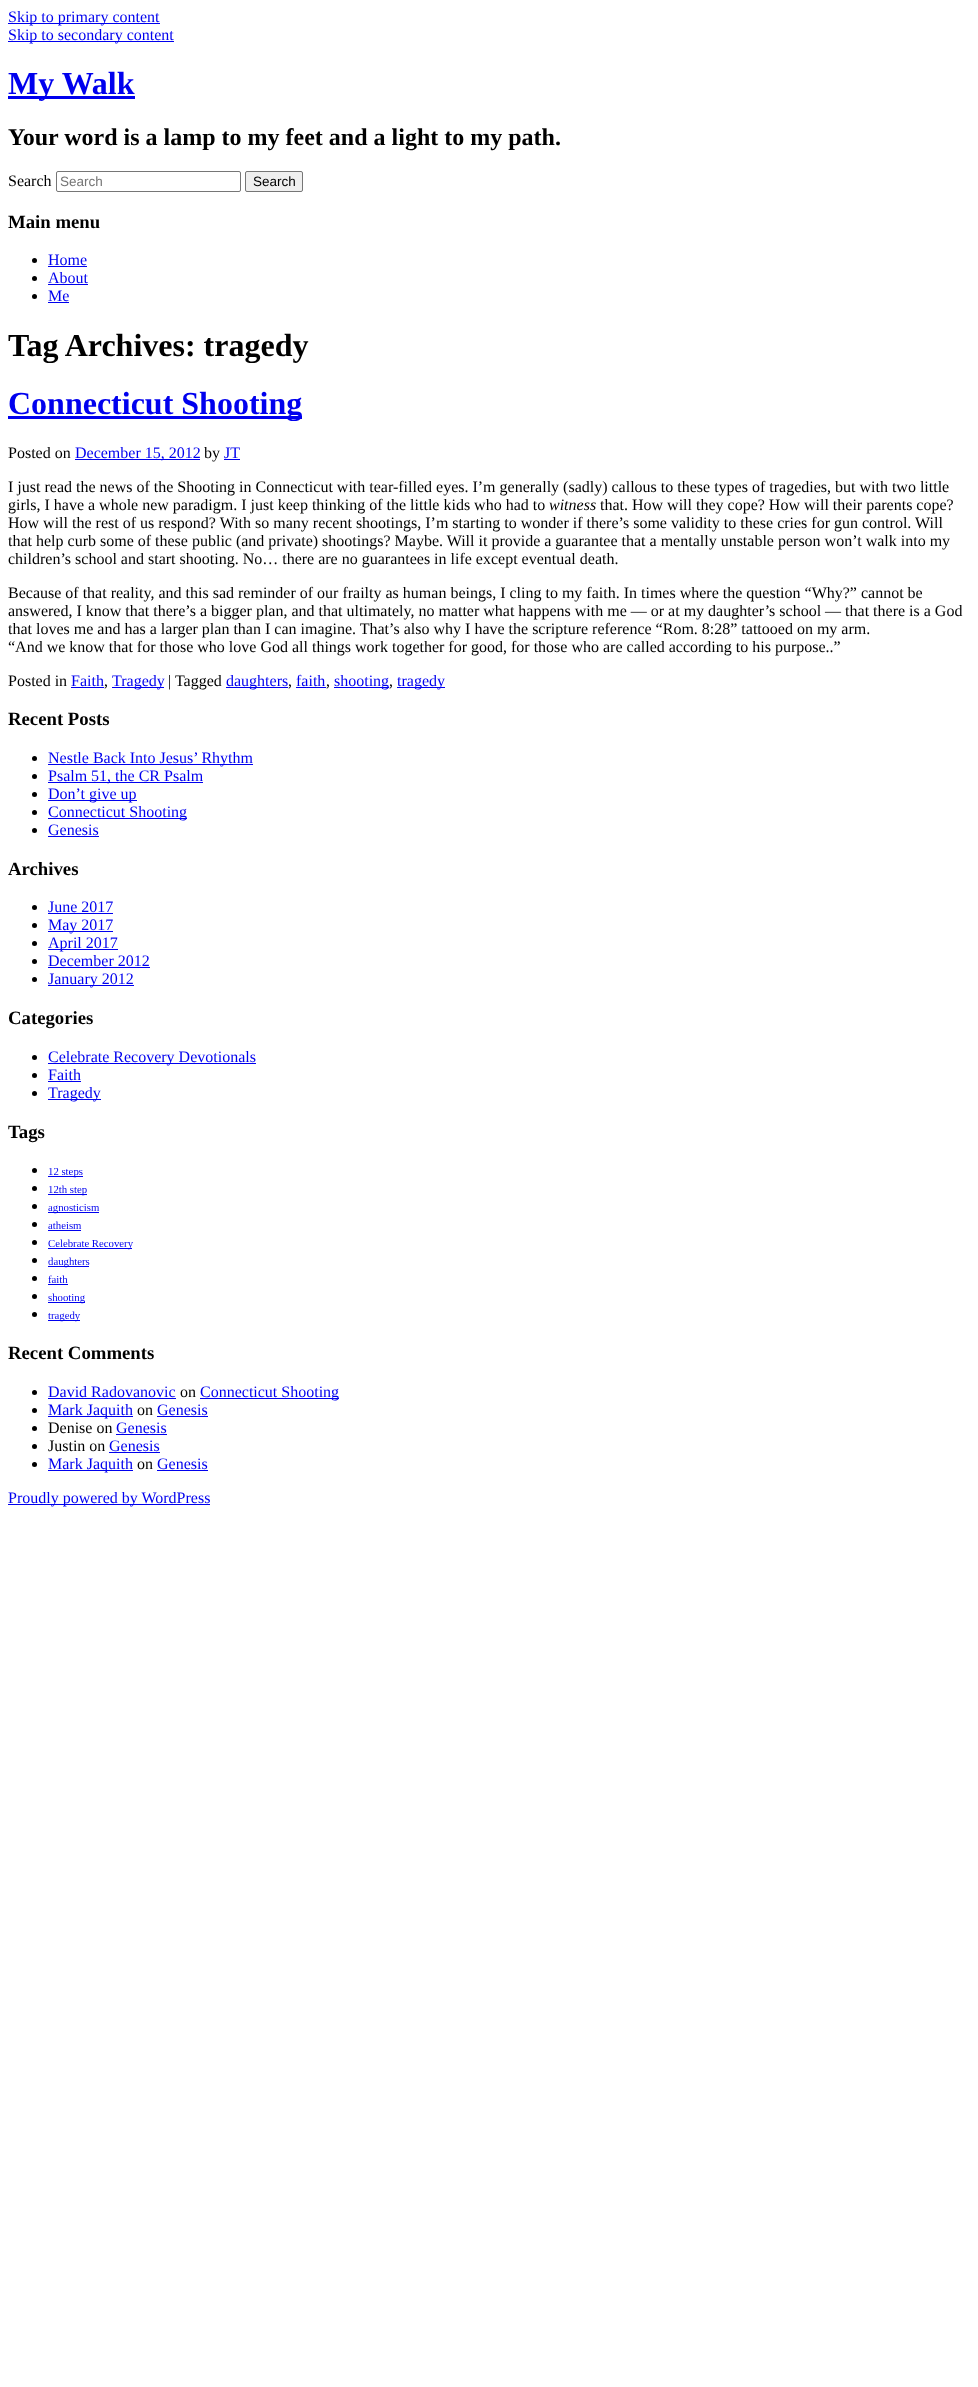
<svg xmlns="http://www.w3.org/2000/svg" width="978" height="2387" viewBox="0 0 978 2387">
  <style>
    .t1 { font: 16px Liberation Serif; fill: #00e; }
    .t2 { font: bold 32px Liberation Serif; fill: #00e; }
    .t3 { font: bold 24px Liberation Serif; fill: #000; }
    .t4 { font: 16px Liberation Serif; fill: #000; }
    .t5 { font: 13.5px Liberation Sans; fill: #757575; }
    .t6 { font: 13.5px Liberation Sans; fill: #000; }
    .t7 { font: bold 18.75px Liberation Serif; fill: #000; }
    .t8 { font: bold 32px Liberation Serif; fill: #000; }
    .t9 { font: italic 16px Liberation Serif; fill: #000; }
    .t10 { font: 10.75px Liberation Serif; fill: #00e; }
  </style>
  <rect width="100%" height="100%" fill="#fff"/>
  <rect x="8" y="23" width="152" height="1" fill="#00e"/>
  <text x="8" y="22" class="t1">Skip to primary content</text>
  <rect x="8" y="41" width="166" height="1" fill="#00e"/>
  <text x="8" y="40" class="t1">Skip to secondary content</text>
  <rect x="8" y="96" width="127" height="3" fill="#00e"/>
  <text x="8" y="94" class="t2">My Walk</text>
  <text x="8" y="145" class="t3">Your word is a lamp to my feet and a light to my path.</text>
  <text x="8" y="186" class="t4">Search</text>
  <rect x="56.5" y="171.5" width="184" height="20" rx="1.5" fill="none" stroke="#767676"/>
  <text x="60" y="186" class="t5">Search</text>
  <rect x="245.5" y="171.5" width="57" height="20" rx="1.5" fill="#efefef" stroke="#767676"/>
  <text x="253" y="186" class="t6">Search</text>
  <text x="8" y="228" class="t7">Main menu</text>
  <circle cx="34.5" cy="260.5" r="2.5" fill="#000"/>
  <text x="48" y="265" class="t1">Home</text>
  <rect x="48" y="266" width="39" height="1" fill="#00e"/>
  <circle cx="34.5" cy="278.5" r="2.5" fill="#000"/>
  <text x="48" y="283" class="t1">About</text>
  <rect x="48" y="284" width="40" height="1" fill="#00e"/>
  <circle cx="34.5" cy="296.5" r="2.5" fill="#000"/>
  <text x="48" y="301" class="t1">Me</text>
  <rect x="48" y="302" width="21" height="1" fill="#00e"/>
  <text x="8" y="356" class="t8">Tag Archives: tragedy</text>
  <rect x="8" y="416" width="294" height="3" fill="#00e"/>
  <text x="8" y="414" class="t2">Connecticut Shooting</text>
  <text x="8" y="458" class="t4">Posted on</text>
  <rect x="75" y="459" width="125" height="1" fill="#00e"/>
  <text x="75" y="458" class="t1">December 15, 2012</text>
  <text x="204" y="458" class="t4">by</text>
  <text x="224" y="458" class="t1">JT</text>
  <rect x="224" y="459" width="16" height="1" fill="#00e"/>
  <text x="8" y="492" class="t4">I just read the news of the Shooting in Connecticut with tear-filled eyes. I’m generally (sadly) callous to these types of tragedies, but with two little</text>
  <text x="8" y="510" class="t4">girls, I have a whole new paradigm. I just keep thinking of the little kids who had to</text>
  <text x="549" y="510" class="t9">witness</text>
  <text x="600" y="510" class="t4">that. How will they cope? How will their parents cope?</text>
  <text x="8" y="528" class="t4">How will the rest of us respond? With so many recent shootings, I’m starting to wonder if there’s some validity to these cries for gun control. Will</text>
  <text x="8" y="546" class="t4">that help curb some of these public (and private) shootings? Maybe. Will it provide a guarantee that a mentally unstable person won’t walk into my</text>
  <text x="8" y="564" class="t4">children’s school and start shooting. No… there are no guarantees in life except eventual death.</text>
  <text x="8" y="598" class="t4">Because of that reality, and this sad reminder of our frailty as human beings, I cling to my faith. In times where the question “Why?” cannot be</text>
  <text x="8" y="616" class="t4">answered, I know that there’s a bigger plan, and that ultimately, no matter what happens with me — or at my daughter’s school — that there is a God</text>
  <text x="8" y="634" class="t4">that loves me and has a larger plan than I can imagine. That’s also why I have the scripture reference “Rom. 8:28” tattooed on my arm.</text>
  <text x="8" y="652" class="t4">“And we know that for those who love God all things work together for good, for those who are called according to his purpose..”</text>
  <text x="8" y="686" class="t4">Posted in</text>
  <text x="71" y="686" class="t1">Faith</text>
  <text x="104" y="686" class="t4">,</text>
  <rect x="71" y="687" width="33" height="1" fill="#00e"/>
  <rect x="112" y="687" width="52" height="1" fill="#00e"/>
  <text x="112" y="686" class="t1">Tragedy</text>
  <text x="168" y="686" class="t4">| Tagged</text>
  <rect x="226" y="687" width="62" height="1" fill="#00e"/>
  <text x="226" y="686" class="t1">daughters</text>
  <text x="288" y="686" class="t4">,</text>
  <text x="296" y="686" class="t1">faith</text>
  <text x="326" y="686" class="t4">,</text>
  <rect x="296" y="687" width="30" height="1" fill="#00e"/>
  <rect x="334" y="687" width="55" height="1" fill="#00e"/>
  <text x="334" y="686" class="t1">shooting</text>
  <text x="389" y="686" class="t4">,</text>
  <rect x="397" y="687" width="48" height="1" fill="#00e"/>
  <text x="397" y="686" class="t1">tragedy</text>
  <text x="8" y="725" class="t7">Recent Posts</text>
  <circle cx="34.5" cy="758.5" r="2.5" fill="#000"/>
  <rect x="48" y="764" width="205" height="1" fill="#00e"/>
  <text x="48" y="763" class="t1">Nestle Back Into Jesus’ Rhythm</text>
  <circle cx="34.5" cy="776.5" r="2.5" fill="#000"/>
  <rect x="48" y="782" width="155" height="1" fill="#00e"/>
  <text x="48" y="781" class="t1">Psalm 51, the CR Psalm</text>
  <circle cx="34.5" cy="794.5" r="2.5" fill="#000"/>
  <rect x="48" y="800" width="89" height="1" fill="#00e"/>
  <text x="48" y="799" class="t1">Don’t give up</text>
  <circle cx="34.5" cy="812.5" r="2.5" fill="#000"/>
  <rect x="48" y="818" width="139" height="1" fill="#00e"/>
  <text x="48" y="817" class="t1">Connecticut Shooting</text>
  <circle cx="34.5" cy="830.5" r="2.5" fill="#000"/>
  <text x="48" y="835" class="t1">Genesis</text>
  <rect x="48" y="836" width="51" height="1" fill="#00e"/>
  <text x="8" y="875" class="t7">Archives</text>
  <circle cx="34.5" cy="907.5" r="2.5" fill="#000"/>
  <text x="48" y="912" class="t1">June 2017</text>
  <rect x="48" y="913" width="65" height="1" fill="#00e"/>
  <circle cx="34.5" cy="925.5" r="2.5" fill="#000"/>
  <rect x="48" y="931" width="65" height="1" fill="#00e"/>
  <text x="48" y="930" class="t1">May 2017</text>
  <circle cx="34.5" cy="943.5" r="2.5" fill="#000"/>
  <rect x="48" y="949" width="70" height="1" fill="#00e"/>
  <text x="48" y="948" class="t1">April 2017</text>
  <circle cx="34.5" cy="961.5" r="2.5" fill="#000"/>
  <text x="48" y="966" class="t1">December 2012</text>
  <rect x="48" y="967" width="102" height="1" fill="#00e"/>
  <circle cx="34.5" cy="979.5" r="2.5" fill="#000"/>
  <rect x="48" y="985" width="86" height="1" fill="#00e"/>
  <text x="48" y="984" class="t1">January 2012</text>
  <text x="8" y="1024" class="t7">Categories</text>
  <circle cx="34.5" cy="1057.5" r="2.5" fill="#000"/>
  <rect x="48" y="1063" width="208" height="1" fill="#00e"/>
  <text x="48" y="1062" class="t1">Celebrate Recovery Devotionals</text>
  <circle cx="34.5" cy="1075.5" r="2.5" fill="#000"/>
  <text x="48" y="1080" class="t1">Faith</text>
  <rect x="48" y="1081" width="33" height="1" fill="#00e"/>
  <circle cx="34.5" cy="1093.5" r="2.5" fill="#000"/>
  <rect x="48" y="1099" width="53" height="1" fill="#00e"/>
  <text x="48" y="1098" class="t1">Tragedy</text>
  <text x="8" y="1138" class="t7">Tags</text>
  <circle cx="34.5" cy="1170.5" r="2.5" fill="#000"/>
  <rect x="48" y="1176" width="35" height="1" fill="#00e"/>
  <text x="48" y="1175" class="t10">12 steps</text>
  <circle cx="34.5" cy="1188.5" r="2.5" fill="#000"/>
  <rect x="48" y="1194" width="39" height="1" fill="#00e"/>
  <text x="48" y="1193" class="t10">12th step</text>
  <circle cx="34.5" cy="1206.5" r="2.5" fill="#000"/>
  <rect x="48" y="1212" width="51" height="1" fill="#00e"/>
  <text x="48" y="1211" class="t10">agnosticism</text>
  <circle cx="34.5" cy="1224.5" r="2.5" fill="#000"/>
  <text x="48" y="1229" class="t10">atheism</text>
  <rect x="48" y="1230" width="33" height="1" fill="#00e"/>
  <circle cx="34.5" cy="1242.5" r="2.5" fill="#000"/>
  <rect x="48" y="1248" width="84" height="1" fill="#00e"/>
  <text x="48" y="1247" class="t10">Celebrate Recovery</text>
  <circle cx="34.5" cy="1260.5" r="2.5" fill="#000"/>
  <rect x="48" y="1266" width="41" height="1" fill="#00e"/>
  <text x="48" y="1265" class="t10">daughters</text>
  <circle cx="34.5" cy="1278.5" r="2.5" fill="#000"/>
  <text x="48" y="1283" class="t10">faith</text>
  <rect x="48" y="1284" width="20" height="1" fill="#00e"/>
  <circle cx="34.5" cy="1296.5" r="2.5" fill="#000"/>
  <rect x="48" y="1302" width="37" height="1" fill="#00e"/>
  <text x="48" y="1301" class="t10">shooting</text>
  <circle cx="34.5" cy="1314.5" r="2.5" fill="#000"/>
  <rect x="48" y="1320" width="32" height="1" fill="#00e"/>
  <text x="48" y="1319" class="t10">tragedy</text>
  <text x="8" y="1359" class="t7">Recent Comments</text>
  <circle cx="34.5" cy="1392.5" r="2.5" fill="#000"/>
  <text x="48" y="1397" class="t1">David Radovanovic</text>
  <rect x="48" y="1398" width="128" height="1" fill="#00e"/>
  <text x="180" y="1397" class="t4">on</text>
  <rect x="200" y="1398" width="139" height="1" fill="#00e"/>
  <text x="200" y="1397" class="t1">Connecticut Shooting</text>
  <circle cx="34.5" cy="1410.5" r="2.5" fill="#000"/>
  <rect x="48" y="1416" width="85" height="1" fill="#00e"/>
  <text x="48" y="1415" class="t1">Mark Jaquith</text>
  <text x="137" y="1415" class="t4">on</text>
  <text x="157" y="1415" class="t1">Genesis</text>
  <rect x="157" y="1416" width="51" height="1" fill="#00e"/>
  <circle cx="34.5" cy="1428.5" r="2.5" fill="#000"/>
  <text x="48" y="1433" class="t4">Denise on</text>
  <text x="116" y="1433" class="t1">Genesis</text>
  <rect x="116" y="1434" width="51" height="1" fill="#00e"/>
  <circle cx="34.5" cy="1446.5" r="2.5" fill="#000"/>
  <text x="48" y="1451" class="t4">Justin on</text>
  <text x="109" y="1451" class="t1">Genesis</text>
  <rect x="109" y="1452" width="51" height="1" fill="#00e"/>
  <circle cx="34.5" cy="1464.5" r="2.5" fill="#000"/>
  <rect x="48" y="1470" width="85" height="1" fill="#00e"/>
  <text x="48" y="1469" class="t1">Mark Jaquith</text>
  <text x="137" y="1469" class="t4">on</text>
  <text x="157" y="1469" class="t1">Genesis</text>
  <rect x="157" y="1470" width="51" height="1" fill="#00e"/>
  <rect x="8" y="1504" width="202" height="1" fill="#00e"/>
  <text x="8" y="1503" class="t1">Proudly powered by WordPress</text>
</svg>
